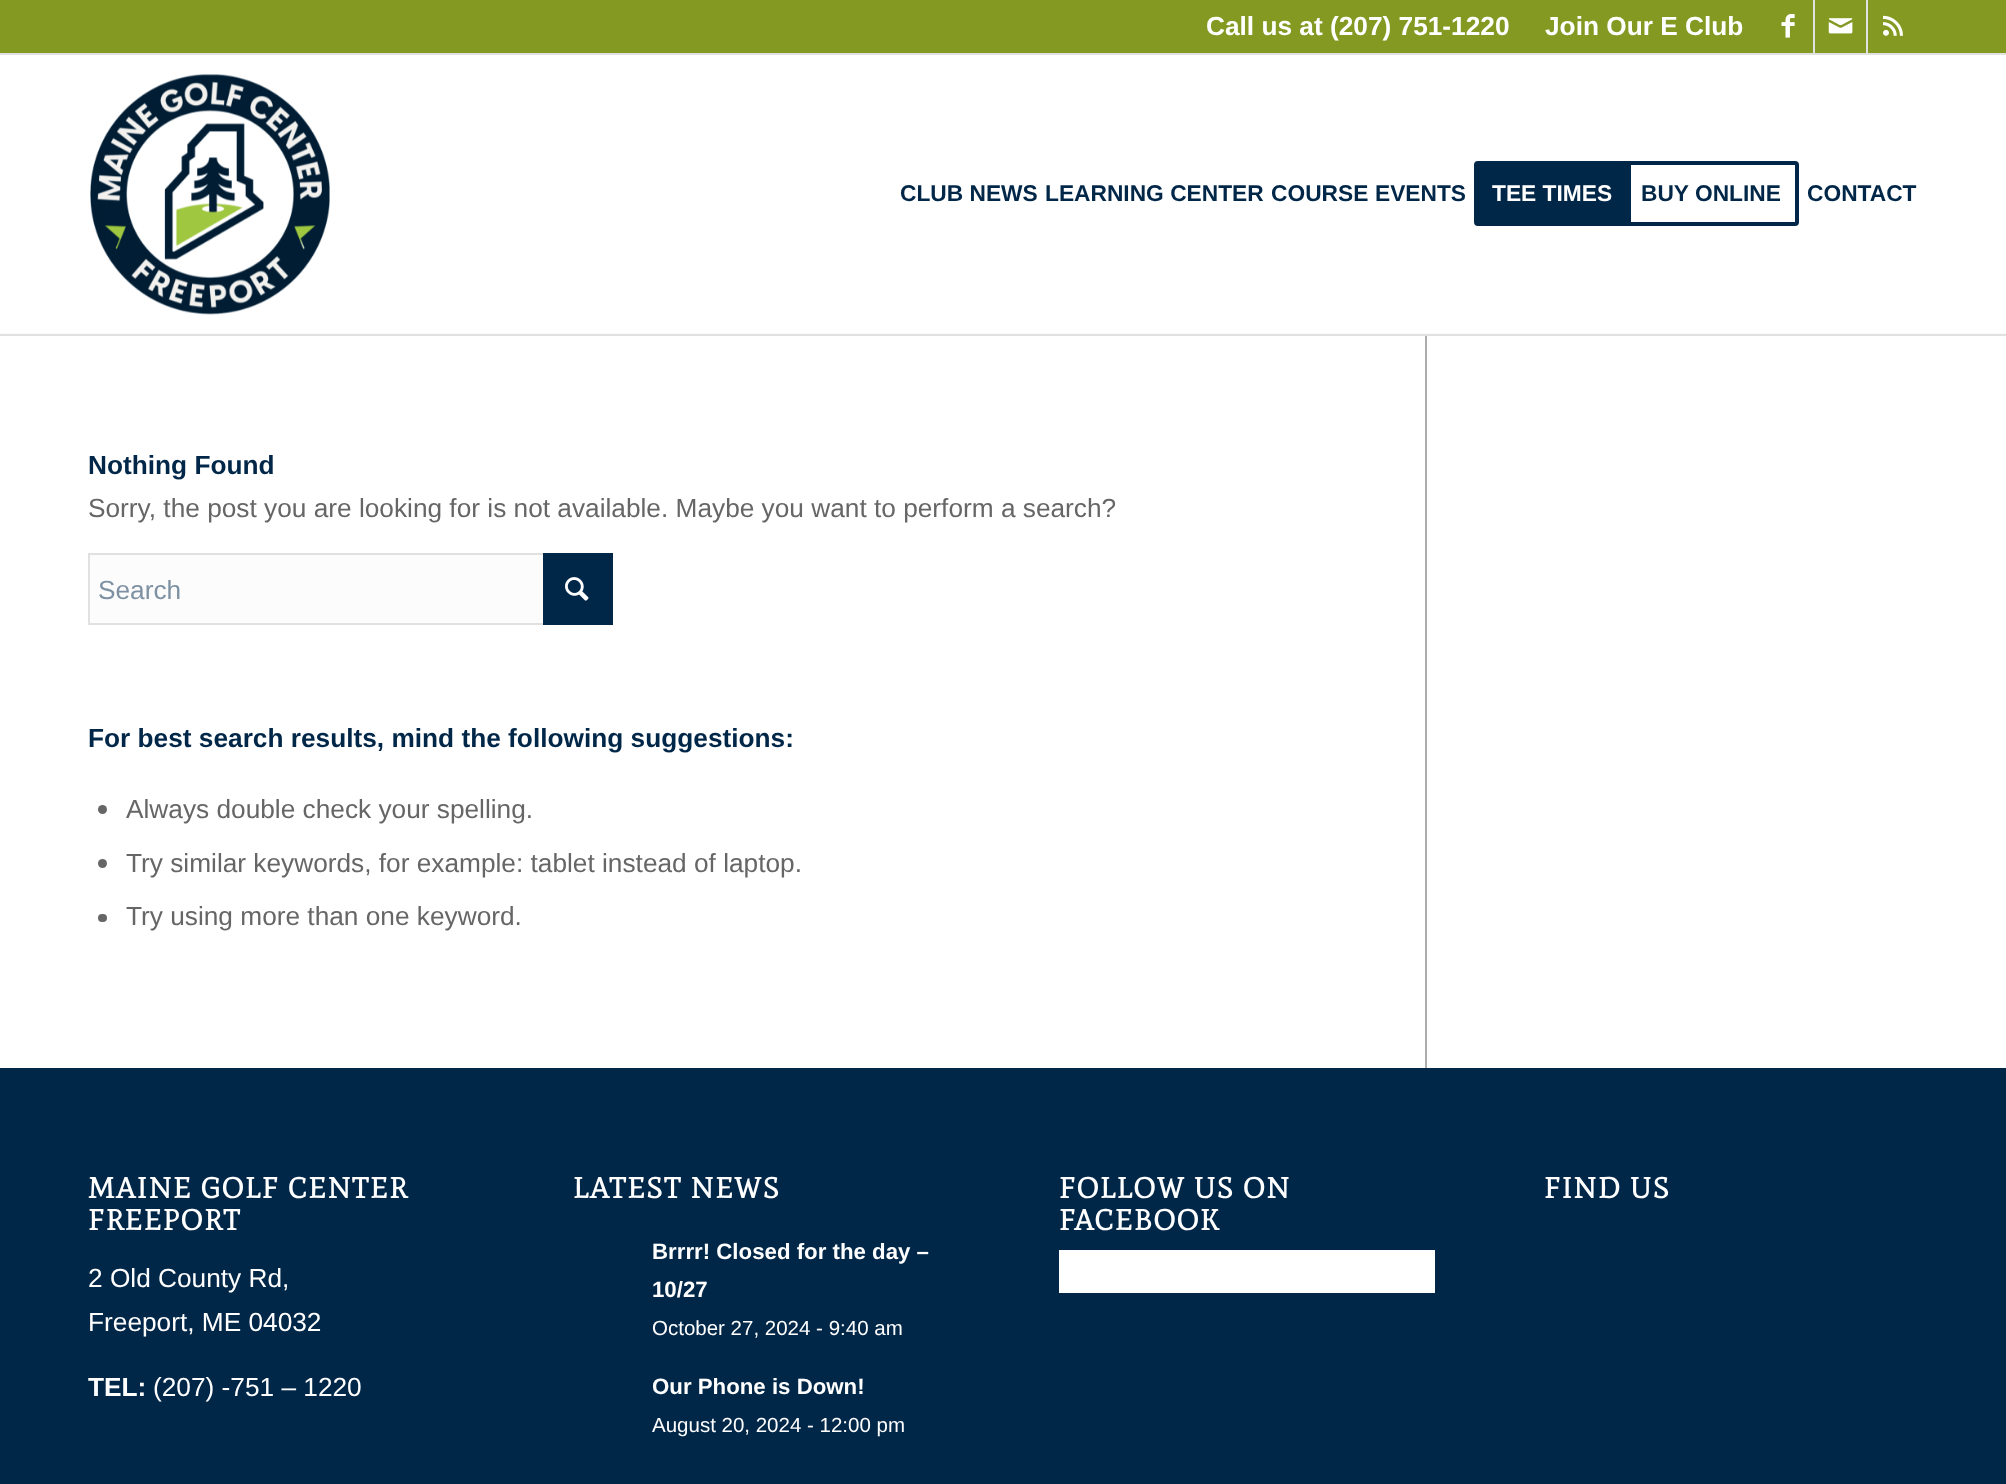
<svg xmlns="http://www.w3.org/2000/svg" width="2006" height="1484" viewBox="0 0 2006 1484">
  <style>
    .t1 { font: bold 26.25px Liberation Sans; fill: #fff; }
    .t2 { font: bold 22.75px Liberation Sans; fill: #002648; }
    .t3 { font: bold 22.75px Liberation Sans; fill: #fff; }
    .t4 { font: bold 26.25px Liberation Sans; fill: #002648; }
    .t5 { font: 26.25px Liberation Sans; fill: #666; }
    .t6 { font: 26.25px Liberation Sans; fill: #7e91a2; }
    .t7 { font: bold 28.9px Mate SC; letter-spacing: 1.75px; fill: #fff; }
    .t8 { font: 26.25px Liberation Sans; fill: #fff; }
    .t9 { font: bold 22.25px Liberation Sans; fill: #fff; }
    .t10 { font: 20.5px Liberation Sans; fill: #fff; }
  </style>
  <defs>
    <clipPath id="clip1"><rect x="88" y="1148" width="376" height="284"/></clipPath>
  </defs>
  <rect width="100%" height="100%" fill="#fff"/>
  <rect x="0" y="0" width="2006" height="53" fill="#839922"/>
  <rect x="0" y="53" width="2006" height="2" fill="#e1e1e1"/>
  <text x="1206" y="35" class="t1">Call us at (207) 751-1220</text>
  <text x="1545" y="35" class="t1">Join Our E Club</text>
  <rect x="1813" y="0" width="2" height="53" fill="#e1e1e1"/>
  <image x="1781" y="14" width="14" height="24" href="images/1.png"/>
  <rect x="1866" y="0" width="2" height="53" fill="#e1e1e1"/>
  <image x="1828" y="18" width="25" height="16" href="images/2.png"/>
  <image x="1883" y="15" width="20" height="21" href="images/3.png"/>
  <rect x="1425" y="334" width="2" height="734" fill="#adadad"/>
  <rect x="0" y="334" width="2006" height="2" fill="#e1e1e1"/>
  <image x="90" y="74" width="240" height="241" href="images/4.png"/>
  <text x="900" y="201" class="t2">CLUB NEWS</text>
  <text x="1045" y="201" class="t2">LEARNING CENTER</text>
  <text x="1271" y="201" class="t2">COURSE</text>
  <text x="1375" y="201" class="t2">EVENTS</text>
  <rect x="1476" y="163" width="153" height="61" rx="2" fill="#002648" stroke="#002648" stroke-width="4"/>
  <text x="1492" y="201" class="t3">TEE TIMES</text>
  <rect x="1623" y="163" width="174" height="61" rx="2" fill="none" stroke="#002648" stroke-width="4"/>
  <text x="1641" y="201" class="t2">BUY ONLINE</text>
  <text x="1807" y="201" class="t2">CONTACT</text>
  <rect x="0" y="333" width="2006" height="1" fill="#fbfbfb"/>
  <text x="88" y="474" class="t4">Nothing Found</text>
  <text x="88" y="517" class="t5">Sorry, the post you are looking for is not available. Maybe you want to perform a search?</text>
  <rect x="90" y="555" width="453" height="68" fill="#fcfcfc"/>
  <rect x="89" y="554" width="523" height="70" fill="none" stroke="#e1e1e1" stroke-width="2"/>
  <rect x="543" y="553" width="70" height="72" fill="#002648"/>
  <text x="98" y="599" class="t6">Search</text>
  <image x="565" y="577" width="24" height="24" href="images/5.png"/>
  <text x="88" y="747" class="t4">For best search results, mind the following suggestions:</text>
  <circle cx="102.5" cy="809.5" r="4.5" fill="#666"/>
  <text x="126" y="818" class="t5">Always double check your spelling.</text>
  <circle cx="102.5" cy="863.5" r="4.5" fill="#666"/>
  <text x="126" y="872" class="t5">Try similar keywords, for example: tablet instead of laptop.</text>
  <rect x="98" y="914" width="9" height="8" rx="4" fill="#666"/>
  <text x="126" y="925" class="t5">Try using more than one keyword.</text>
  <rect x="0" y="1068" width="2006" height="416" fill="#002648"/>
  <text x="88" y="1198" class="t7">MAINE GOLF CENTER</text>
  <text x="88" y="1230" class="t7">FREEPORT</text>
  <text x="88" y="1287" class="t8">2 Old County Rd,</text>
  <text x="88" y="1331" class="t8">Freeport, ME 04032</text>
  <g clip-path="url(#clip1)">
    <text x="88" y="1396" class="t1">TEL:</text>
  </g>
  <text x="153" y="1396" class="t8">(207) -751 – 1220</text>
  <text x="573" y="1198" class="t7">LATEST NEWS</text>
  <text x="652" y="1259" class="t9">Brrrr! Closed for the day –</text>
  <text x="652" y="1297" class="t9">10/27</text>
  <text x="652" y="1335" class="t10">October 27, 2024 - 9:40 am</text>
  <text x="652" y="1394" class="t9">Our Phone is Down!</text>
  <text x="652" y="1432" class="t10">August 20, 2024 - 12:00 pm</text>
  <text x="1059" y="1198" class="t7">FOLLOW US ON</text>
  <text x="1059" y="1230" class="t7">FACEBOOK</text>
  <rect x="1059" y="1250" width="376" height="43" fill="#fff"/>
  <text x="1544" y="1198" class="t7">FIND US</text>
</svg>
